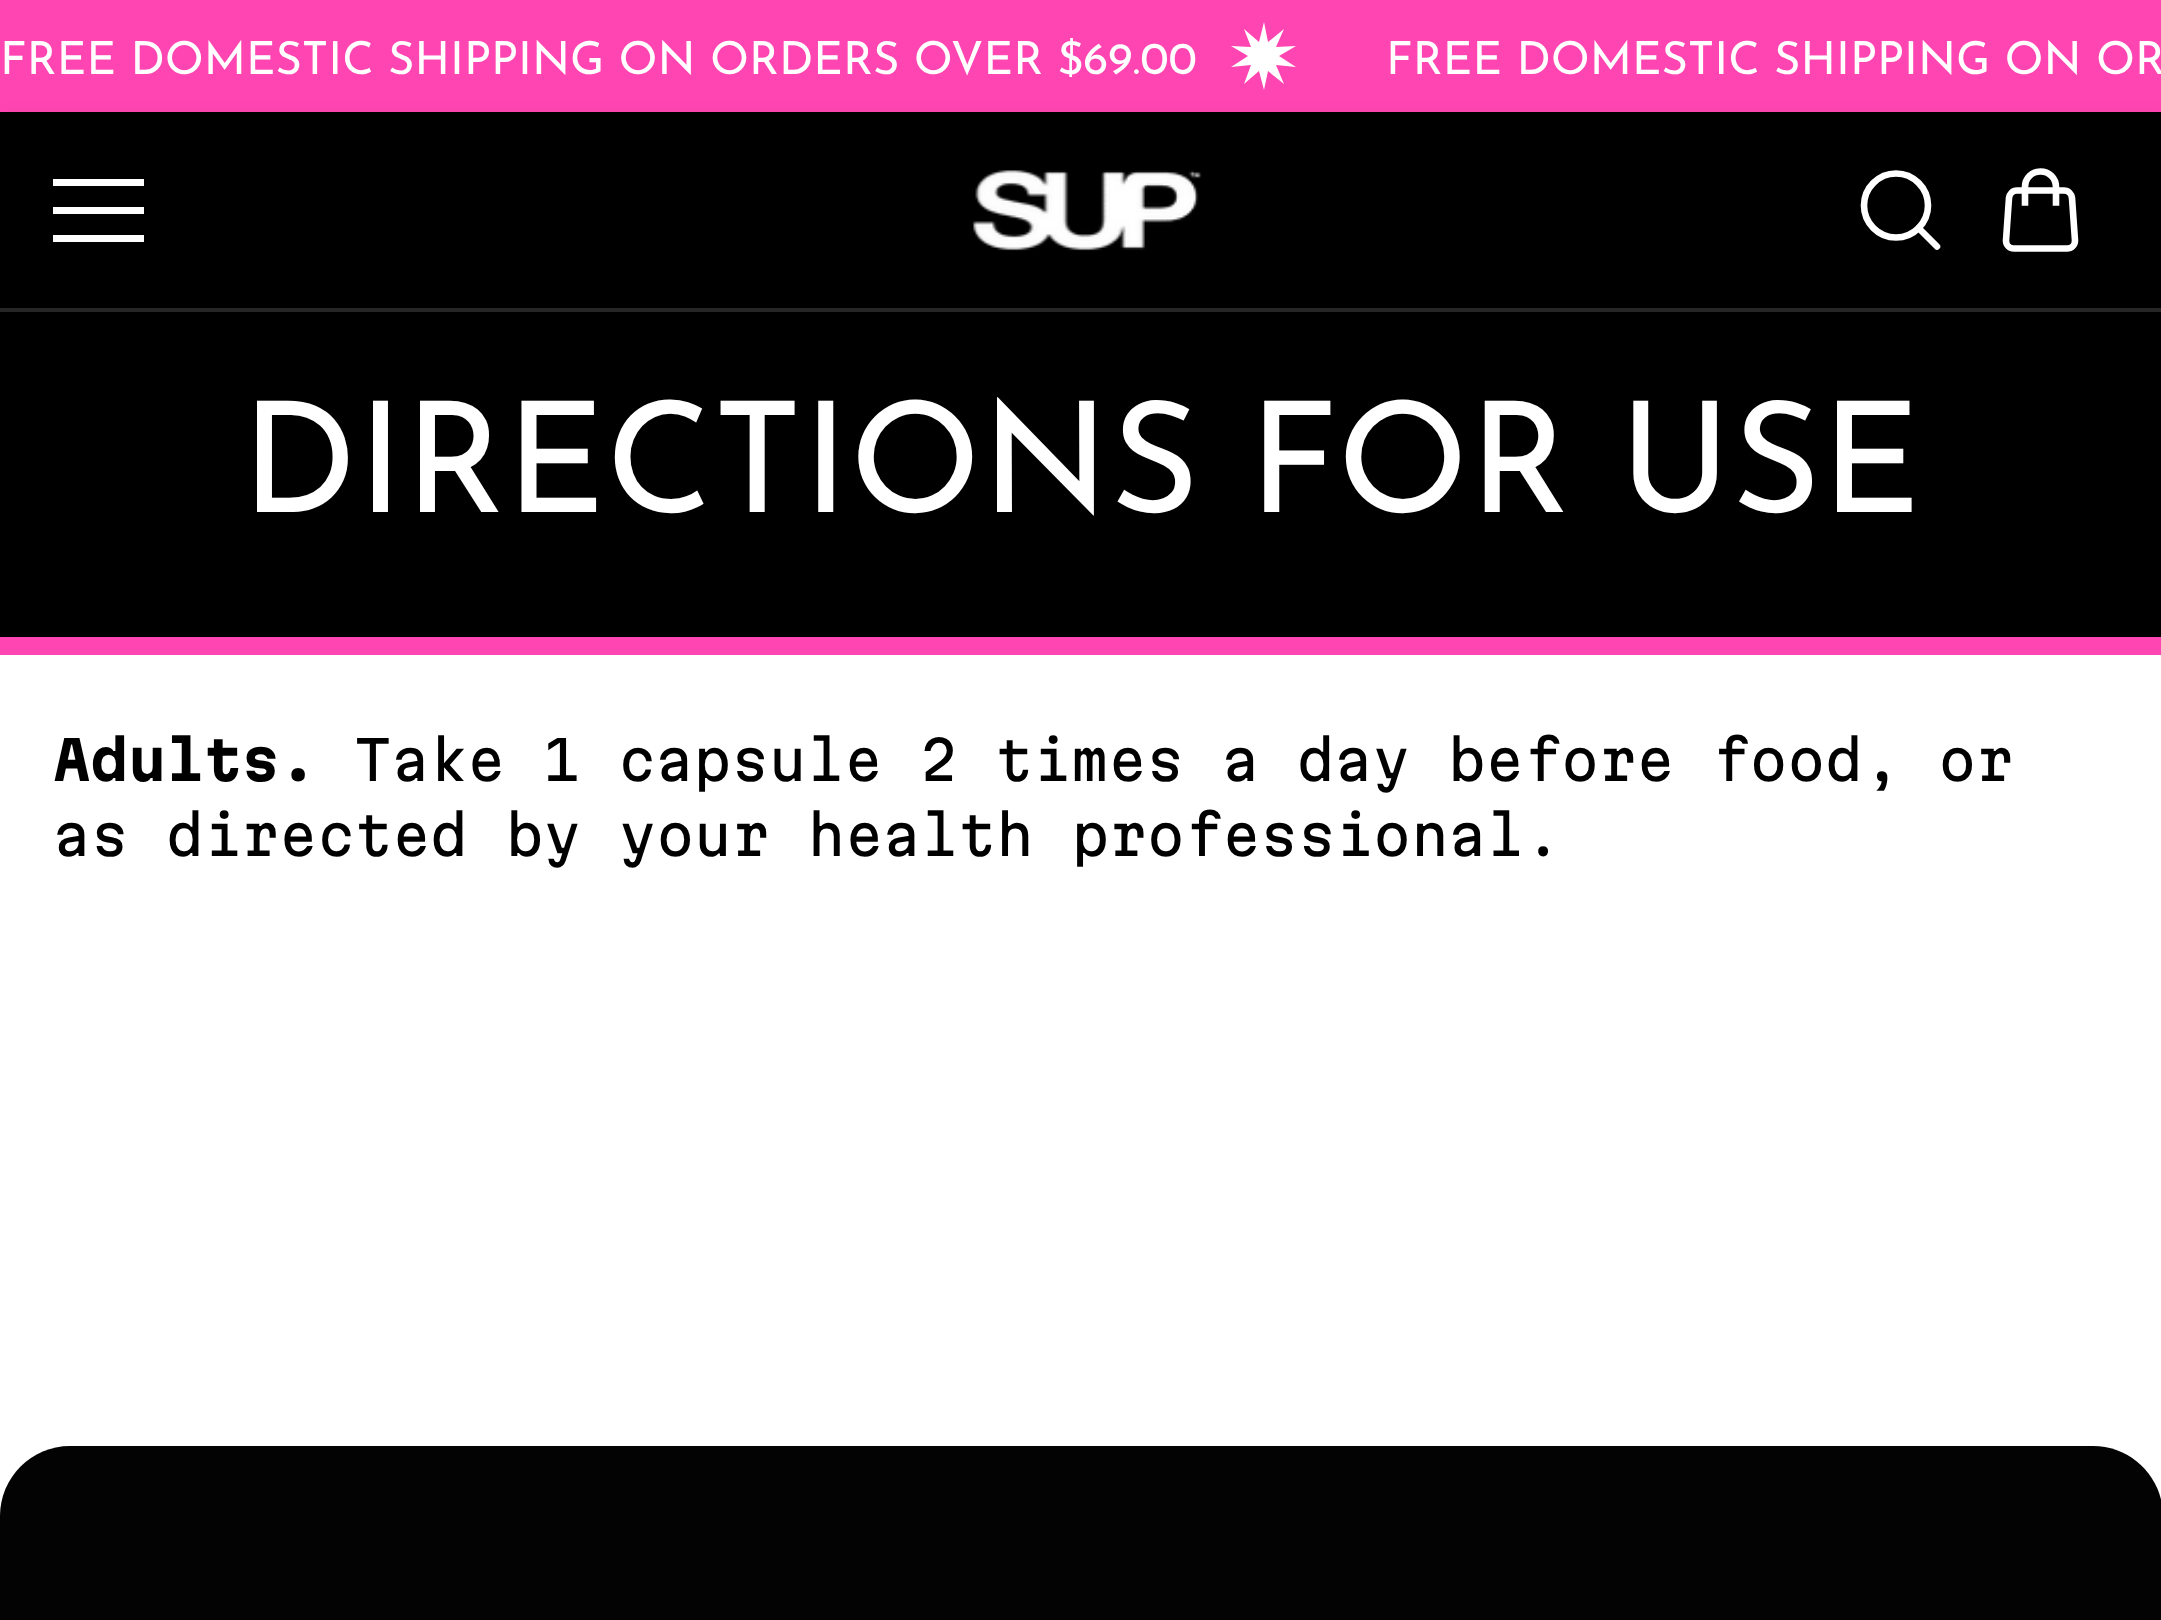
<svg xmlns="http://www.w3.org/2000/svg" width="2161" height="1620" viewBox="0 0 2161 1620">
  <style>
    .t1 { font: 45.5px Josefin Sans; fill: #fff; }
    .t2 { font: 154px Josefin Sans; fill: #fff; }
    .t3 { font: bold 53.9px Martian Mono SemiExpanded; fill: #000; }
    .t4 { font: 53.9px Martian Mono SemiExpanded; fill: #000; }
  </style>
  <rect width="100%" height="100%" fill="#fff"/>
  <rect x="0" y="0" width="2161" height="112" fill="#fe45b1"/>
  <text x="0" y="74" class="t1">FREE DOMESTIC SHIPPING ON ORDERS OVER $69.00</text>
  <path d="M1264 22L1268 42L1284 29L1276 47L1296 46L1279 56L1296 67L1276 65L1284 84L1268 71L1264 90L1259 71L1244 84L1251 65L1231 67L1248 56L1231 46L1251 47L1244 29L1259 42Z" fill="#fff"/>
  <text x="1386" y="74" class="t1">FREE DOMESTIC SHIPPING ON OR</text>
  <rect x="0" y="312" width="2161" height="325" fill="#000"/>
  <rect x="0" y="123" width="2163" height="199" fill="#0000000d" filter="blur(14px)"/>
  <rect x="0" y="112" width="2161" height="196" fill="#000"/>
  <rect x="0" y="308" width="2161" height="4" fill="#262626"/>
  <rect x="53" y="179" width="91" height="7" fill="#fff"/>
  <rect x="53" y="207" width="91" height="7" fill="#fff"/>
  <rect x="53" y="235" width="91" height="7" fill="#fff"/>
  <image x="972" y="170" width="230" height="81" href="images/1.png"/>
  <path d="M1896 237.5C1913.5 237.5 1928 223 1928 205.5C1928 188 1913.5 173.5 1896 173.5C1878.5 173.5 1864 188 1864 205.5C1864 223 1878.5 237.5 1896 237.5Z" fill="none" stroke="#fff" stroke-width="6.6" stroke-linecap="round" stroke-linejoin="round"/>
  <path d="M1918.5 228L1937 246.5" fill="none" stroke="#fff" stroke-width="6.6" stroke-linecap="round" stroke-linejoin="round"/>
  <path d="M2064 190.5H2017C2012.5 190.5 2009.5 194 2009 198L2006 240.5C2006 245 2009.5 248.5 2014 248.5H2067C2071.5 248.5 2075 245 2075 240.5L2072 198C2071.5 194 2068.5 190.5 2064 190.5Z" fill="none" stroke="#fff" stroke-width="6.6"/>
  <path d="M2056 202.5V187C2056 178 2049 171.5 2040.5 171.5C2032 171.5 2025 178 2025 187V202.5" fill="none" stroke="#fff" stroke-width="6.6" stroke-linecap="square"/>
  <text x="241" y="512" class="t2">DIRECTIONS FOR USE</text>
  <rect x="0" y="637" width="2161" height="18" fill="#ff45b1"/>
  <text x="53" y="781" class="t3">Adults.</text>
  <text x="354" y="781" class="t4">Take 1 capsule 2 times a day before food, or</text>
  <text x="53" y="856" class="t4">as directed by your health professional.</text>
  <path d="M70 1446H2093C2131.5 1446 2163 1477.5 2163 1516V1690H0V1516C0 1477.5 31.5 1446 70 1446Z" fill="#030303"/>
</svg>
